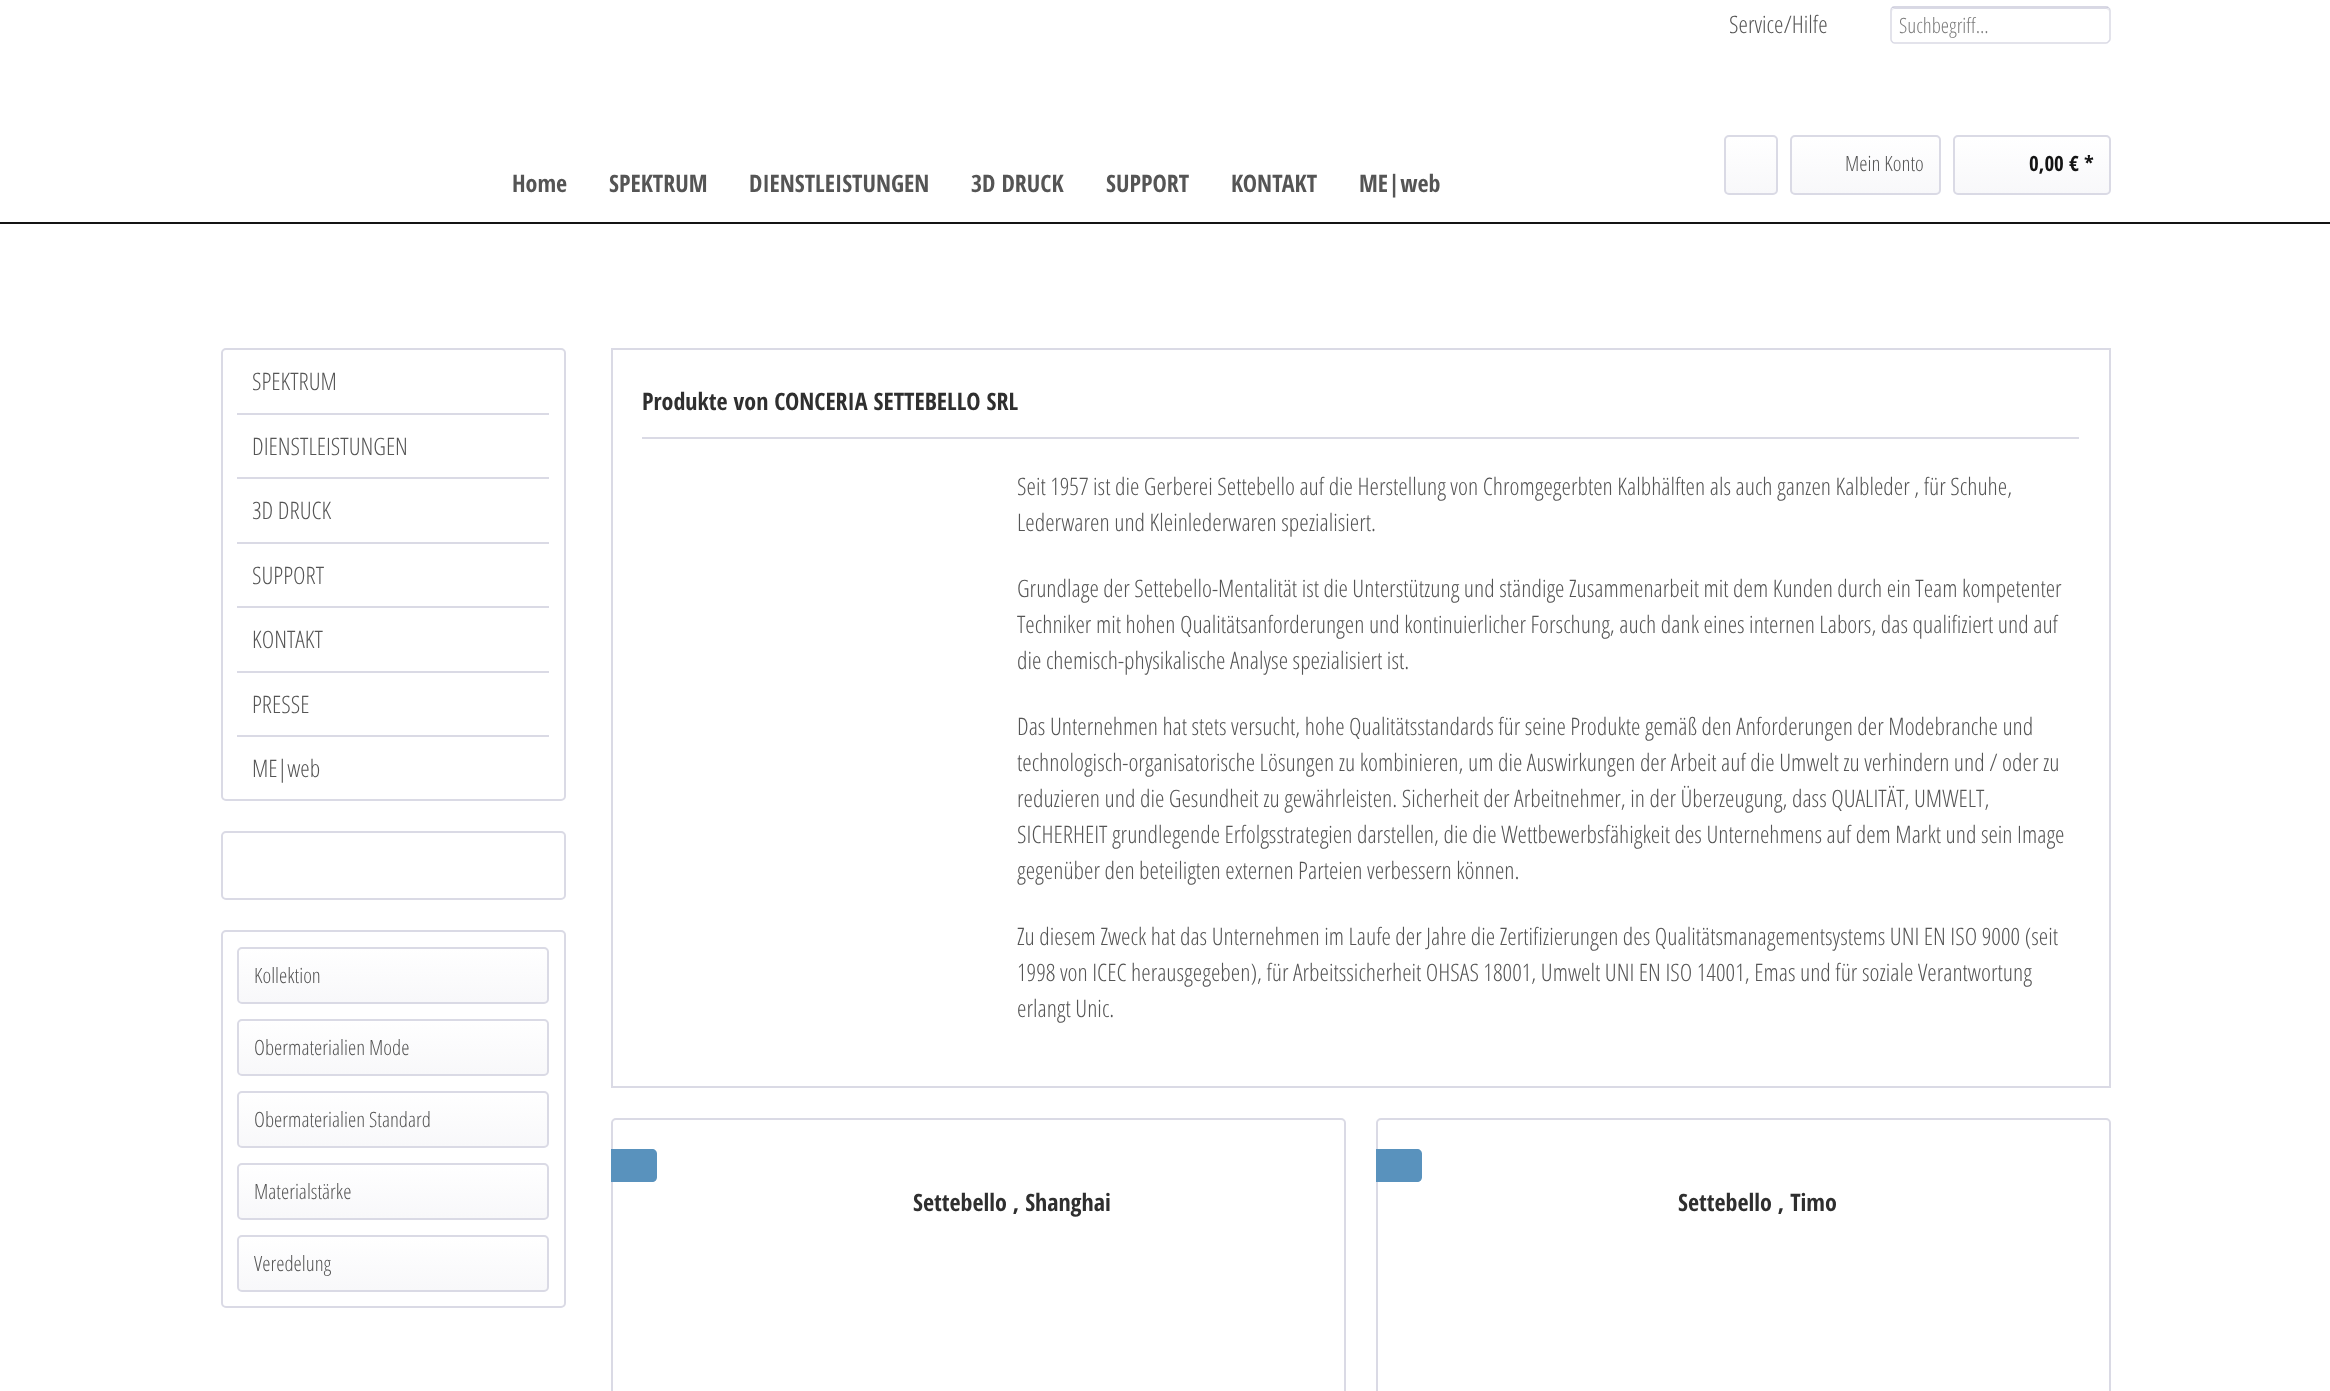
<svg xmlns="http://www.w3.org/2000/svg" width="2330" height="1391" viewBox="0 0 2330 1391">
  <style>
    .t1 { font: 300 24px Open Sans Condensed; fill: #555; }
    .t2 { font: 300 21px Open Sans Condensed; fill: #7b7b7b; }
    .t3 { font: 300 21px Open Sans Condensed; fill: #555; }
    .t4 { font: bold 21px Open Sans Condensed; fill: #141414; }
    .t5 { font: bold 24px Open Sans Condensed; fill: #555; }
    .t6 { font: bold 24px Open Sans Condensed; fill: #2f2f2f; }
  </style>
  <defs>
    <linearGradient id="g1" gradientUnits="userSpaceOnUse" x1="1751" y1="137" x2="1751" y2="194"><stop offset="0" stop-color="#fff"/><stop offset="1" stop-color="#f8f8fa"/></linearGradient>
    <linearGradient id="g2" gradientUnits="userSpaceOnUse" x1="1865" y1="137" x2="1865" y2="194"><stop offset="0" stop-color="#fff"/><stop offset="1" stop-color="#f8f8fa"/></linearGradient>
    <linearGradient id="g3" gradientUnits="userSpaceOnUse" x1="2032" y1="137" x2="2032" y2="194"><stop offset="0" stop-color="#fff"/><stop offset="1" stop-color="#f8f8fa"/></linearGradient>
    <linearGradient id="g4" gradientUnits="userSpaceOnUse" x1="393" y1="948" x2="393" y2="1002"><stop offset="0" stop-color="#fff"/><stop offset="1" stop-color="#f8f8fa"/></linearGradient>
    <linearGradient id="g5" gradientUnits="userSpaceOnUse" x1="393" y1="1020" x2="393" y2="1074"><stop offset="0" stop-color="#fff"/><stop offset="1" stop-color="#f8f8fa"/></linearGradient>
    <linearGradient id="g6" gradientUnits="userSpaceOnUse" x1="393" y1="1092" x2="393" y2="1146"><stop offset="0" stop-color="#fff"/><stop offset="1" stop-color="#f8f8fa"/></linearGradient>
    <linearGradient id="g7" gradientUnits="userSpaceOnUse" x1="393" y1="1164" x2="393" y2="1218"><stop offset="0" stop-color="#fff"/><stop offset="1" stop-color="#f8f8fa"/></linearGradient>
    <linearGradient id="g8" gradientUnits="userSpaceOnUse" x1="393" y1="1236" x2="393" y2="1290"><stop offset="0" stop-color="#fff"/><stop offset="1" stop-color="#f8f8fa"/></linearGradient>
  </defs>
  <rect width="100%" height="100%" fill="#fff"/>
  <text x="1729" y="33" class="t1">Service/Hilfe</text>
  <path d="M1894 9H2106C2108 9 2109 10 2109 12V11C2109 9 2108 8 2106 8H1895C1893 8 1892 9 1892 11V12C1892 10 1893 9 1894 9Z" fill="#dadae5"/>
  <path d="M1892 8C1892.5 7 1893.5 7 1894.5 7H2106C2107 7 2108 7 2108.5 8" fill="none" stroke="#cbcbdb" stroke-width="1.5"/>
  <path d="M2108.5 8C2109.5 8.5 2110 9.5 2110 10.5V39C2110 40 2109.5 41 2108.5 41.5C2108 42.5 2107 43 2106 43H1894.5C1893.5 43 1892.5 42.5 1892 41.5C1891 41 1891 40 1891 39V10.5C1891 9.5 1891 8.5 1892 8" fill="none" stroke="#dadae5" stroke-width="1.5"/>
  <text x="1899" y="33" class="t2">Suchbegriff...</text>
  <rect x="1725" y="137" width="51" height="57" rx="3" fill="url(#g1)"/>
  <rect x="1725" y="136" width="52" height="58" rx="4" fill="none" stroke="#dadae5" stroke-width="2"/>
  <rect x="1791" y="137" width="149" height="57" rx="3" fill="url(#g2)"/>
  <rect x="1791" y="136" width="149" height="58" rx="4" fill="none" stroke="#dadae5" stroke-width="2"/>
  <text x="1845" y="171" class="t3">Mein Konto</text>
  <rect x="1955" y="137" width="154" height="57" rx="3" fill="url(#g3)"/>
  <rect x="1954" y="136" width="156" height="58" rx="4" fill="none" stroke="#dadae5" stroke-width="2"/>
  <text x="2029" y="171" class="t4">0,00 € *</text>
  <rect x="0" y="222" width="2330" height="2" fill="#141414"/>
  <text x="512" y="192" class="t5">Home</text>
  <text x="609" y="192" class="t5">SPEKTRUM</text>
  <text x="749" y="192" class="t5">DIENSTLEISTUNGEN</text>
  <text x="971" y="192" class="t5">3D DRUCK</text>
  <text x="1106" y="192" class="t5">SUPPORT</text>
  <text x="1231" y="192" class="t5">KONTAKT</text>
  <text x="1359" y="192" class="t5">ME|web</text>
  <rect x="222" y="349" width="343" height="451" rx="4" fill="none" stroke="#dadae5" stroke-width="2"/>
  <rect x="237" y="413" width="312" height="2" fill="#dadae5"/>
  <text x="252" y="390" class="t1">SPEKTRUM</text>
  <rect x="237" y="477" width="312" height="2" fill="#dadae5"/>
  <text x="252" y="455" class="t1">DIENSTLEISTUNGEN</text>
  <rect x="237" y="542" width="312" height="2" fill="#dadae5"/>
  <text x="252" y="519" class="t1">3D DRUCK</text>
  <rect x="237" y="606" width="312" height="2" fill="#dadae5"/>
  <text x="252" y="584" class="t1">SUPPORT</text>
  <rect x="237" y="671" width="312" height="2" fill="#dadae5"/>
  <text x="252" y="648" class="t1">KONTAKT</text>
  <rect x="237" y="735" width="312" height="2" fill="#dadae5"/>
  <text x="252" y="713" class="t1">PRESSE</text>
  <text x="252" y="777" class="t1">ME|web</text>
  <rect x="222" y="832" width="343" height="67" rx="4" fill="none" stroke="#dadae5" stroke-width="2"/>
  <rect x="222" y="931" width="343" height="376" rx="4" fill="none" stroke="#dadae5" stroke-width="2"/>
  <rect x="239" y="948" width="309" height="54" rx="3" fill="url(#g4)"/>
  <rect x="238" y="948" width="310" height="55" rx="4" fill="none" stroke="#dadae5" stroke-width="2"/>
  <text x="254" y="983" class="t3">Kollektion</text>
  <rect x="239" y="1020" width="309" height="54" rx="3" fill="url(#g5)"/>
  <rect x="238" y="1020" width="310" height="55" rx="4" fill="none" stroke="#dadae5" stroke-width="2"/>
  <text x="254" y="1055" class="t3">Obermaterialien Mode</text>
  <rect x="239" y="1092" width="309" height="54" rx="3" fill="url(#g6)"/>
  <rect x="238" y="1092" width="310" height="55" rx="4" fill="none" stroke="#dadae5" stroke-width="2"/>
  <text x="254" y="1127" class="t3">Obermaterialien Standard</text>
  <rect x="239" y="1164" width="309" height="54" rx="3" fill="url(#g7)"/>
  <rect x="238" y="1164" width="310" height="55" rx="4" fill="none" stroke="#dadae5" stroke-width="2"/>
  <text x="254" y="1199" class="t3">Materialstärke</text>
  <rect x="239" y="1236" width="309" height="54" rx="3" fill="url(#g8)"/>
  <rect x="238" y="1236" width="310" height="55" rx="4" fill="none" stroke="#dadae5" stroke-width="2"/>
  <text x="254" y="1271" class="t3">Veredelung</text>
  <rect x="612" y="349" width="1498" height="738" fill="none" stroke="#dadae5" stroke-width="2"/>
  <rect x="642" y="437" width="1437" height="2" fill="#dadae5"/>
  <text x="642" y="410" class="t6">Produkte von CONCERIA SETTEBELLO SRL</text>
  <text x="1017" y="495" class="t1">Seit 1957 ist die Gerberei Settebello auf die Herstellung von Chromgegerbten Kalbhälften als auch ganzen Kalbleder , für Schuhe,</text>
  <text x="1017" y="531" class="t1">Lederwaren und Kleinlederwaren spezialisiert.</text>
  <text x="1017" y="597" class="t1">Grundlage der Settebello-Mentalität ist die Unterstützung und ständige Zusammenarbeit mit dem Kunden durch ein Team kompetenter</text>
  <text x="1017" y="633" class="t1">Techniker mit hohen Qualitätsanforderungen und kontinuierlicher Forschung, auch dank eines internen Labors, das qualifiziert und auf</text>
  <text x="1017" y="669" class="t1">die chemisch-physikalische Analyse spezialisiert ist.</text>
  <text x="1017" y="735" class="t1">Das Unternehmen hat stets versucht, hohe Qualitätsstandards für seine Produkte gemäß den Anforderungen der Modebranche und</text>
  <text x="1017" y="771" class="t1">technologisch-organisatorische Lösungen zu kombinieren, um die Auswirkungen der Arbeit auf die Umwelt zu verhindern und / oder zu</text>
  <text x="1017" y="807" class="t1">reduzieren und die Gesundheit zu gewährleisten. Sicherheit der Arbeitnehmer, in der Überzeugung, dass QUALITÄT, UMWELT,</text>
  <text x="1017" y="843" class="t1">SICHERHEIT grundlegende Erfolgsstrategien darstellen, die die Wettbewerbsfähigkeit des Unternehmens auf dem Markt und sein Image</text>
  <text x="1017" y="879" class="t1">gegenüber den beteiligten externen Parteien verbessern können.</text>
  <text x="1017" y="945" class="t1">Zu diesem Zweck hat das Unternehmen im Laufe der Jahre die Zertifizierungen des Qualitätsmanagementsystems UNI EN ISO 9000 (seit</text>
  <text x="1017" y="981" class="t1">1998 von ICEC herausgegeben), für Arbeitssicherheit OHSAS 18001, Umwelt UNI EN ISO 14001, Emas und für soziale Verantwortung</text>
  <text x="1017" y="1017" class="t1">erlangt Unic.</text>
  <rect x="612" y="1119" width="733" height="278" rx="4" fill="none" stroke="#dadae5" stroke-width="2"/>
  <path d="M611 1149H652C655 1149 657 1151 657 1154V1177C657 1180 655 1182 652 1182H611Z" fill="#5992bd"/>
  <text x="913" y="1211" class="t6">Settebello , Shanghai</text>
  <rect x="1377" y="1119" width="733" height="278" rx="4" fill="none" stroke="#dadae5" stroke-width="2"/>
  <path d="M1376 1149H1417C1420 1149 1422 1151 1422 1154V1177C1422 1180 1420 1182 1417 1182H1376Z" fill="#5992bd"/>
  <text x="1678" y="1211" class="t6">Settebello , Timo</text>
</svg>
